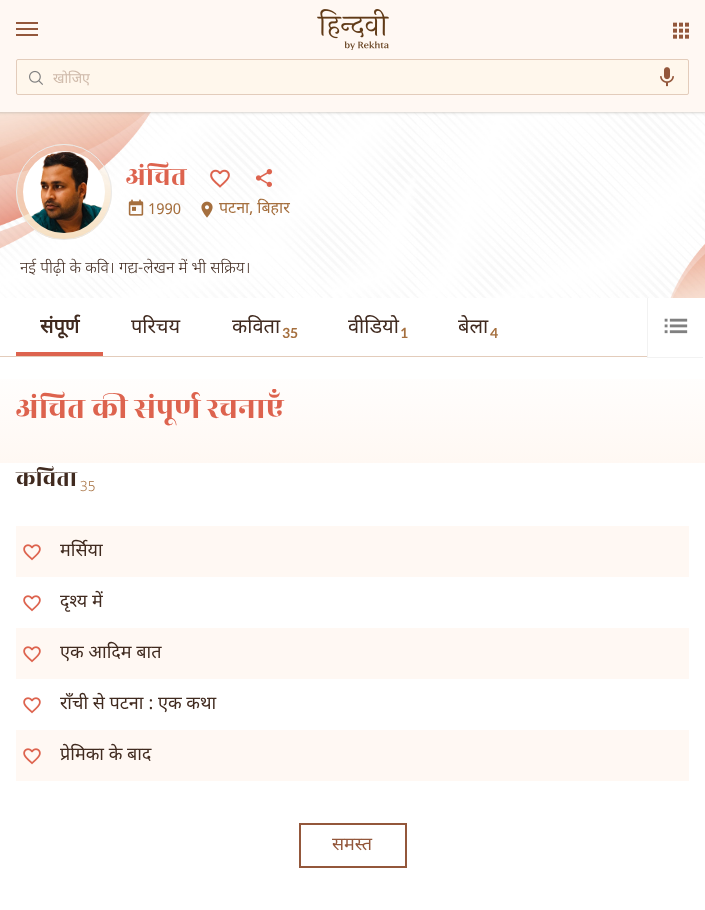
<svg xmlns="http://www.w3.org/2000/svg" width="705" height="910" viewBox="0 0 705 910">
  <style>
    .t1 { font: 14px Noto Sans Devanagari; fill: #cfbaaa; }
    .t2 { font: 28px Rozha One; fill: #dd634e; }
    .t3 { font: 15px Noto Sans Devanagari; fill: #a56f3e; }
    .t4 { font: 16px Noto Sans Devanagari; fill: #a56f3e; }
    .t5 { font: 300 16px Noto Sans Devanagari; fill: #402a1f; }
    .t6 { font: bold 20px Noto Sans Devanagari; fill: #402a1f; }
    .t7 { font: 20px Noto Sans Devanagari; fill: #402a1f; }
    .t8 { font: bold 14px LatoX; fill: #a56f3e; }
    .t9 { font: 32px Rozha One; fill: #dd634e; }
    .t10 { font: 24px Rozha One; fill: #402a1f; }
    .t11 { font: 300 14px Noto Sans Devanagari; fill: #a56f3e; }
    .t12 { font: 18px Noto Sans Devanagari; fill: #402a1f; }
    .t13 { font: 18px Noto Sans Devanagari; fill: #93573b; }
  </style>
  <defs>
    <clipPath id="clip1"><rect x="53" y="69" width="583" height="20"/></clipPath>
    <linearGradient id="g1" gradientUnits="userSpaceOnUse" x1="353" y1="357" x2="353" y2="463"><stop offset="0" stop-color="#fff"/><stop offset="1" stop-color="#fff8f3"/></linearGradient>
    <clipPath id="clip2"><rect x="16" y="389" width="673" height="42"/></clipPath>
    <clipPath id="clip3"><rect x="60" y="691" width="629" height="27"/></clipPath>
    <clipPath id="clip4"><rect x="60" y="742" width="629" height="27"/></clipPath>
  </defs>
  <rect width="100%" height="100%" fill="#fff"/>
  <image x="0" y="112" width="705" height="186" href="images/5.png"/>
  <rect x="0" y="0" width="705" height="112" fill="#dad5cc" filter="blur(1px)"/>
  <rect x="0" y="0" width="705" height="112" fill="#fff8f3"/>
  <rect x="16" y="22" width="22" height="2" fill="#93573b"/>
  <rect x="16" y="28" width="22" height="2" fill="#93573b"/>
  <rect x="16" y="34" width="22" height="2" fill="#93573b"/>
  <image x="317" y="9" width="72" height="41" href="images/1.png"/>
  <image x="673" y="22" width="16" height="17" href="images/2.png"/>
  <rect x="16.5" y="59.5" width="672" height="35" rx="1.5" fill="#fff7ec" stroke="#e3ccbb"/>
  <image x="29" y="70" width="14" height="15" href="images/3.png"/>
  <g clip-path="url(#clip1)">
    <text x="53" y="83" class="t1">खोजिए</text>
  </g>
  <image x="660" y="67" width="14" height="20" href="images/4.png"/>
  <circle cx="64" cy="192" r="47.5" fill="none" stroke="#eaeaea"/>
  <image x="23" y="151" width="82" height="82" href="images/6.png"/>
  <text x="126" y="185" class="t2">अंचित</text>
  <image x="210" y="169" width="20" height="19" href="images/7.png"/>
  <image x="255" y="169" width="18" height="18" href="images/8.png"/>
  <image x="128" y="199" width="16" height="17" href="images/9.png"/>
  <text x="148" y="214" class="t3">1990</text>
  <image x="201" y="201" width="12" height="17" href="images/10.png"/>
  <text x="219" y="213" class="t4">पटना, बिहार</text>
  <text x="20" y="273" class="t5">नई पीढ़ी के कवि। गद्य-लेखन में भी सक्रिय।</text>
  <rect x="0" y="356" width="647" height="1" fill="#e3ccbb"/>
  <text x="40" y="333" class="t6">संपूर्ण</text>
  <rect x="16" y="352" width="87" height="4" fill="#dd634e"/>
  <text x="131" y="333" class="t7">परिचय</text>
  <text x="232" y="333" class="t7">कविता</text>
  <text x="282" y="338" class="t8">35</text>
  <text x="348" y="333" class="t7">वीडियो</text>
  <text x="400" y="338" class="t8">1</text>
  <text x="458" y="333" class="t7">बेला</text>
  <text x="490" y="338" class="t8">4</text>
  <rect x="647" y="357" width="56" height="1" fill="#f2f2f2"/>
  <rect x="647" y="298" width="1" height="60" fill="#f2f2f2"/>
  <image x="664" y="318" width="24" height="16" href="images/11.png"/>
  <rect x="0" y="379" width="705" height="84" fill="url(#g1)"/>
  <g clip-path="url(#clip2)">
    <text x="16" y="418" class="t9">अंचित की संपूर्ण रचनाएँ</text>
  </g>
  <text x="16" y="486" class="t10">कविता</text>
  <text x="80" y="491" class="t11">35</text>
  <rect x="16" y="526" width="673" height="51" fill="#fff8f3"/>
  <image x="23" y="544" width="18" height="17" href="images/12.png"/>
  <text x="60" y="556" class="t12">मर्सिया</text>
  <image x="23" y="595" width="18" height="17" href="images/13.png"/>
  <text x="60" y="607" class="t12">दृश्य में</text>
  <rect x="16" y="628" width="673" height="51" fill="#fff8f3"/>
  <image x="23" y="646" width="18" height="17" href="images/12.png"/>
  <text x="60" y="658" class="t12">एक आदिम बात</text>
  <image x="23" y="697" width="18" height="17" href="images/13.png"/>
  <g clip-path="url(#clip3)">
    <text x="60" y="709" class="t12">राँची से पटना :</text>
  </g>
  <text x="158" y="709" class="t12">एक कथा</text>
  <rect x="16" y="730" width="673" height="51" fill="#fff8f3"/>
  <image x="23" y="748" width="18" height="17" href="images/12.png"/>
  <g clip-path="url(#clip4)">
    <text x="60" y="760" class="t12">प्रेमिका के बाद</text>
  </g>
  <rect x="300" y="824" width="106" height="43" fill="none" stroke="#93573b" stroke-width="2"/>
  <text x="332" y="850" class="t13">समस्त</text>
</svg>
